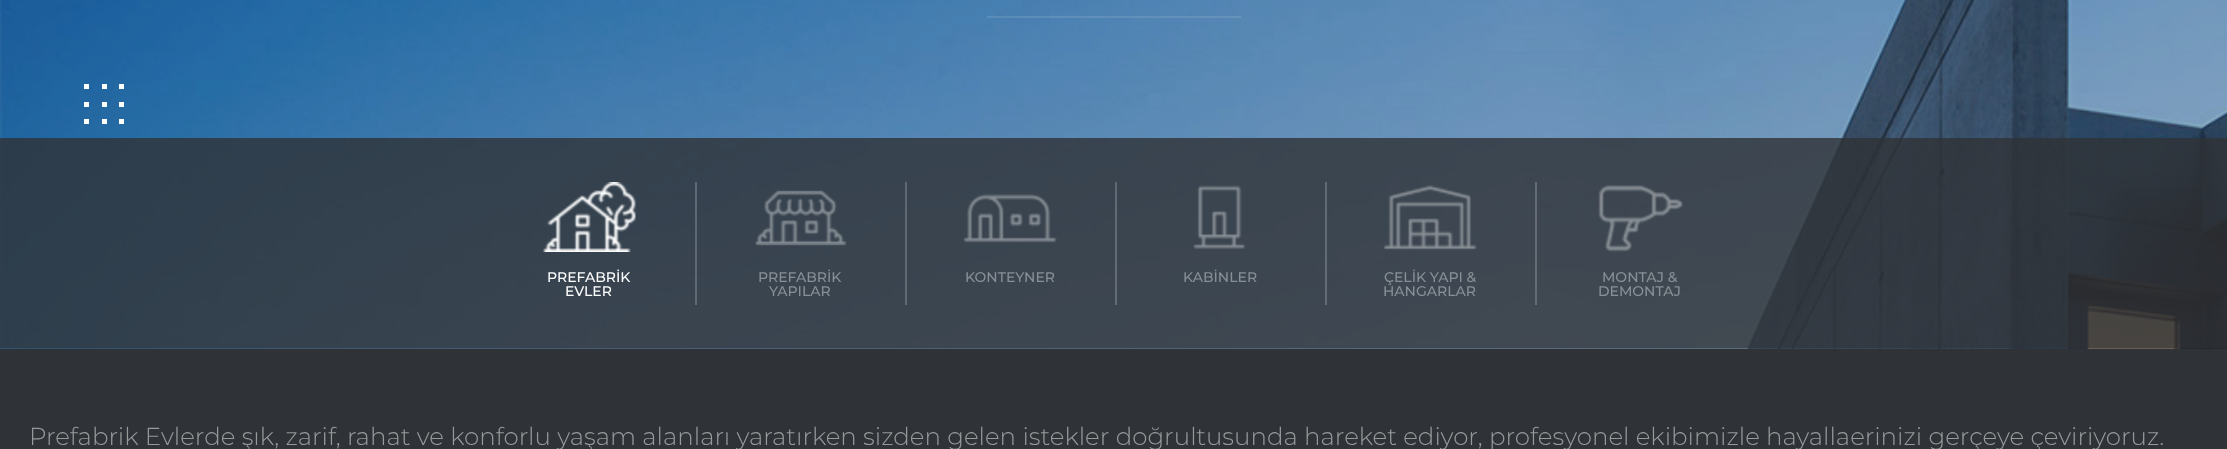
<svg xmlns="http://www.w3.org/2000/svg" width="2227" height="449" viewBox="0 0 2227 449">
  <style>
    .t1 { font: 500 14px Montserrat; fill: #fff; }
    .t2 { font: 500 14px Montserrat; fill: #888f96; }
    .t3 { font: 300 24.5px Montserrat; fill: #97999b; }
  </style>
  <rect width="100%" height="100%" fill="#2f3236"/>
  <image x="0" y="0" width="2227" height="349" href="images/1.png"/>
  <rect x="84" y="84" width="5" height="5" fill="#fff"/>
  <rect x="102" y="84" width="5" height="5" fill="#fff"/>
  <rect x="119" y="84" width="5" height="5" fill="#fff"/>
  <rect x="84" y="102" width="5" height="5" fill="#fff"/>
  <rect x="102" y="102" width="5" height="5" fill="#fff"/>
  <rect x="119" y="102" width="5" height="5" fill="#fff"/>
  <rect x="84" y="119" width="5" height="5" fill="#fff"/>
  <rect x="102" y="119" width="5" height="5" fill="#fff"/>
  <rect x="119" y="119" width="5" height="5" fill="#fff"/>
  <rect x="987" y="16" width="254" height="2" fill="#ffffff1a"/>
  <rect x="0" y="138" width="2227" height="210" fill="#2f3236cc"/>
  <image x="543" y="182" width="93" height="70" href="images/2.png"/>
  <text x="547" y="282" class="t1">PREFABRİK</text>
  <text x="565" y="296" class="t1">EVLER</text>
  <rect x="695" y="182" width="2" height="123" fill="#ffffff33"/>
  <image x="755" y="190" width="92" height="56" href="images/3.png"/>
  <text x="758" y="282" class="t2">PREFABRİK</text>
  <text x="769" y="296" class="t2">YAPILAR</text>
  <rect x="905" y="182" width="2" height="123" fill="#ffffff33"/>
  <image x="963" y="194" width="94" height="49" href="images/4.png"/>
  <text x="965" y="282" class="t2">KONTEYNER</text>
  <rect x="1115" y="182" width="2" height="123" fill="#ffffff33"/>
  <image x="1193" y="185" width="52" height="64" href="images/5.png"/>
  <text x="1183" y="282" class="t2">KABİNLER</text>
  <rect x="1325" y="182" width="2" height="123" fill="#ffffff33"/>
  <image x="1383" y="185" width="94" height="65" href="images/6.png"/>
  <text x="1384" y="282" class="t2">ÇELİK YAPI &amp;</text>
  <text x="1383" y="296" class="t2">HANGARLAR</text>
  <rect x="1535" y="182" width="2" height="123" fill="#ffffff33"/>
  <image x="1598" y="185" width="85" height="67" href="images/7.png"/>
  <text x="1602" y="282" class="t2">MONTAJ &amp;</text>
  <text x="1598" y="296" class="t2">DEMONTAJ</text>
  <text x="29" y="445" class="t3">Prefabrik Evlerde şık, zarif, rahat ve konforlu yaşam alanları yaratırken sizden gelen istekler doğrultusunda hareket ediyor, profesyonel ekibimizle hayallaerinizi gerçeye çeviriyoruz.</text>
</svg>
